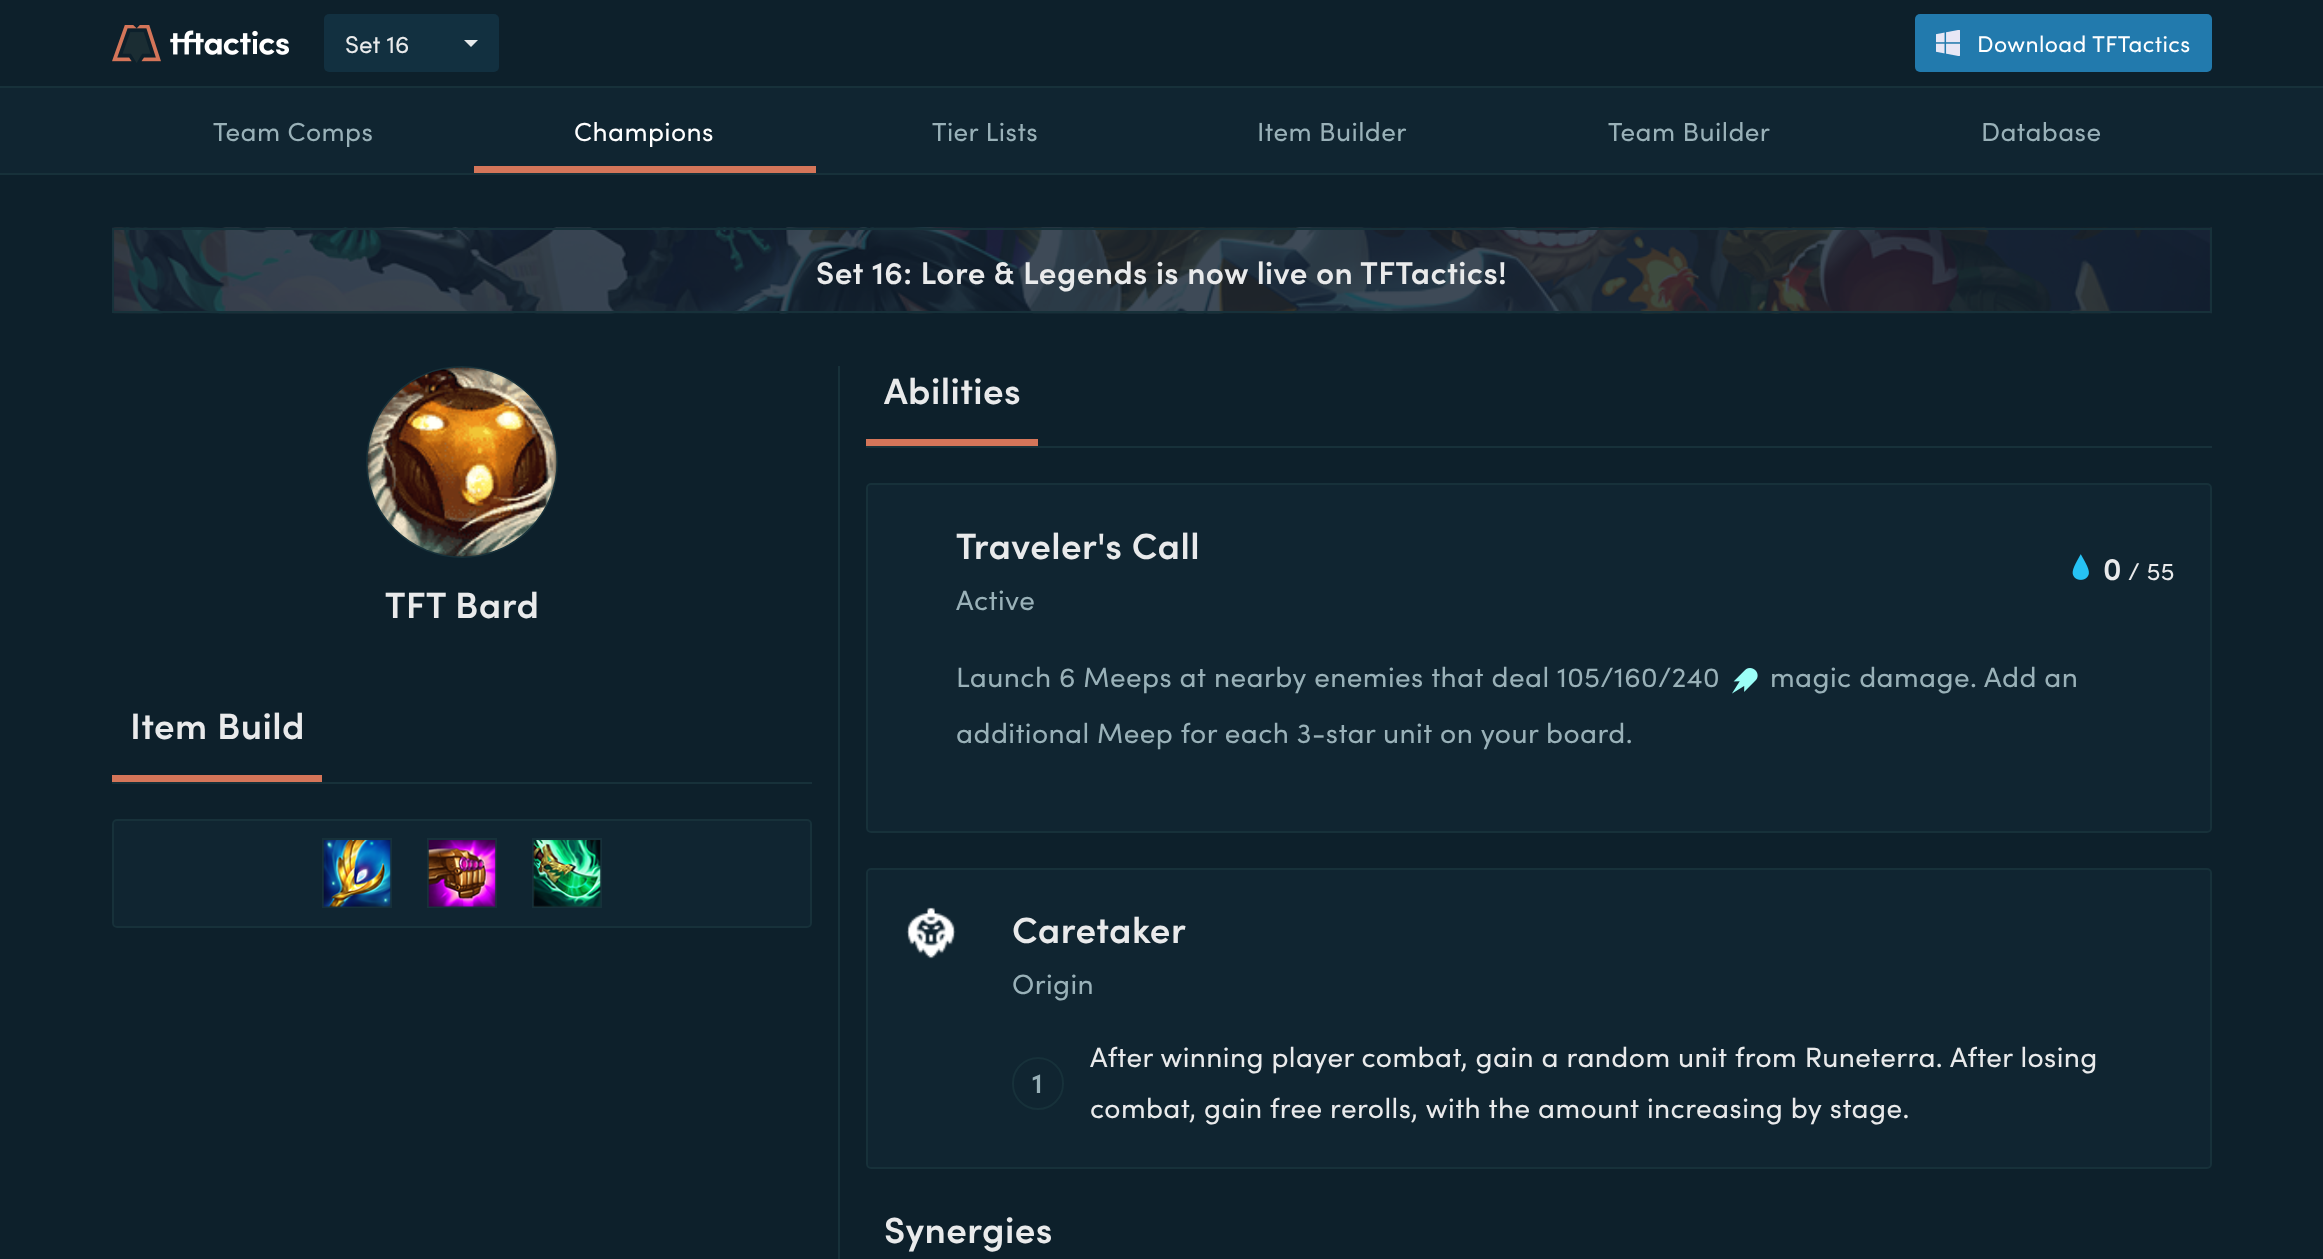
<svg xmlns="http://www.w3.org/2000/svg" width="2323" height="1259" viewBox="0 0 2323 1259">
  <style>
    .t1 { font: 24.5px Sofia; fill: #e9eaeb; }
    .t2 { font: 22.75px Sofia; letter-spacing: 0.42px; fill: #fff; }
    .t3 { font: 26.25px Sofia; letter-spacing: 0.42px; fill: #99b1b8; }
    .t4 { font: 26.25px Sofia; letter-spacing: 0.42px; fill: #fff; }
    .t5 { font: 600 31.5px Sofia; letter-spacing: 0.42px; fill: #e9eaeb; }
    .t6 { font: 600 36.75px Sofia; letter-spacing: 0.42px; fill: #e9eaeb; }
    .t7 { font: 28px Sofia; letter-spacing: 0.42px; fill: #99b1b8; }
    .t8 { font: 24.5px Sofia; letter-spacing: 0.42px; fill: #e9eaeb; }
    .t9 { font: 600 28px Sofia; letter-spacing: 0.42px; fill: #99b1b8; }
    .t10 { font: 28px Sofia; letter-spacing: 0.42px; fill: #e9eaeb; }
  </style>
  <rect width="100%" height="100%" fill="#0d202b"/>
  <rect x="0" y="86" width="2323" height="2" fill="#17313a"/>
  <image x="112" y="25" width="177" height="38" href="images/1.png"/>
  <rect x="324" y="14" width="175" height="58" rx="5" fill="#123040"/>
  <text x="345" y="53" class="t1">Set 16</text>
  <path d="M464 40H478L471 47Z" fill="#e7eaec"/>
  <rect x="1915" y="14" width="297" height="58" rx="5" fill="#227aad"/>
  <image x="1936" y="30" width="24" height="26" href="images/2.png"/>
  <text x="1977" y="52" class="t2">Download TFTactics</text>
  <rect x="0" y="88" width="2323" height="85" fill="#102531"/>
  <rect x="0" y="173" width="2323" height="2" fill="#17313a"/>
  <text x="213" y="141" class="t3">Team Comps</text>
  <text x="574" y="141" class="t4">Champions</text>
  <rect x="474" y="166" width="342" height="7" fill="#d47559"/>
  <text x="932" y="141" class="t3">Tier Lists</text>
  <text x="1257" y="141" class="t3">Item Builder</text>
  <text x="1608" y="141" class="t3">Team Builder</text>
  <text x="1981" y="141" class="t3">Database</text>
  <image x="112" y="227" width="2100" height="87" href="images/3.png"/>
  <rect x="113" y="229" width="2098" height="83" fill="none" stroke="#17313a" stroke-width="2"/>
  <text x="816" y="284" class="t5">Set 16: Lore &amp; Legends is now live on TFTactics!</text>
  <circle cx="462" cy="462" r="95" fill="none" stroke="#17313a" stroke-width="2"/>
  <image x="367" y="367" width="190" height="190" href="images/4.png"/>
  <text x="385" y="618" class="t6">TFT Bard</text>
  <rect x="112" y="775" width="210" height="7" fill="#d47559"/>
  <text x="130" y="739" class="t6">Item Build</text>
  <rect x="112" y="782" width="700" height="2" fill="#17313a"/>
  <rect x="113" y="820" width="698" height="107" rx="4" fill="#102531" stroke="#17313a" stroke-width="2"/>
  <rect x="323" y="839" width="68" height="68" fill="none" stroke="#17313a" stroke-width="2"/>
  <image x="323" y="840" width="68" height="67" href="images/5.png"/>
  <rect x="428" y="839" width="68" height="68" fill="none" stroke="#17313a" stroke-width="2"/>
  <image x="428" y="840" width="68" height="67" href="images/6.png"/>
  <rect x="533" y="839" width="68" height="68" fill="none" stroke="#17313a" stroke-width="2"/>
  <image x="533" y="840" width="68" height="67" href="images/7.png"/>
  <rect x="838" y="366" width="2" height="893" fill="#17313a"/>
  <rect x="866" y="439" width="172" height="7" fill="#d47559"/>
  <text x="884" y="404" class="t6">Abilities</text>
  <rect x="866" y="446" width="1346" height="2" fill="#17313a"/>
  <rect x="867" y="484" width="1344" height="348" rx="4" fill="#102531" stroke="#17313a" stroke-width="2"/>
  <text x="956" y="559" class="t6">Traveler's Call</text>
  <text x="956" y="610" class="t7">Active</text>
  <image x="2072" y="554" width="17" height="26" href="images/8.png"/>
  <text x="2103" y="580" class="t5">0</text>
  <text x="2128" y="580" class="t8">/ 55</text>
  <text x="956" y="687" class="t7">Launch 6 Meeps at nearby enemies that deal 105/160/240</text>
  <image x="1732" y="668" width="26" height="26" href="images/9.png"/>
  <text x="1770" y="687" class="t7">magic damage. Add an</text>
  <text x="956" y="743" class="t7">additional Meep for each 3-star unit on your board.</text>
  <rect x="867" y="869" width="1344" height="299" rx="4" fill="#102531" stroke="#17313a" stroke-width="2"/>
  <image x="906" y="907" width="50" height="52" href="images/10.png"/>
  <text x="1012" y="943" class="t6">Caretaker</text>
  <text x="1012" y="994" class="t7">Origin</text>
  <rect x="1013" y="1058" width="50" height="51" rx="25" fill="none" stroke="#17313a" stroke-width="2"/>
  <text x="1032" y="1093" class="t9">1</text>
  <text x="1090" y="1067" class="t10">After winning player combat, gain a random unit from Runeterra. After losing</text>
  <text x="1090" y="1118" class="t10">combat, gain free rerolls, with the amount increasing by stage.</text>
  <text x="884" y="1243" class="t6">Synergies</text>
</svg>
